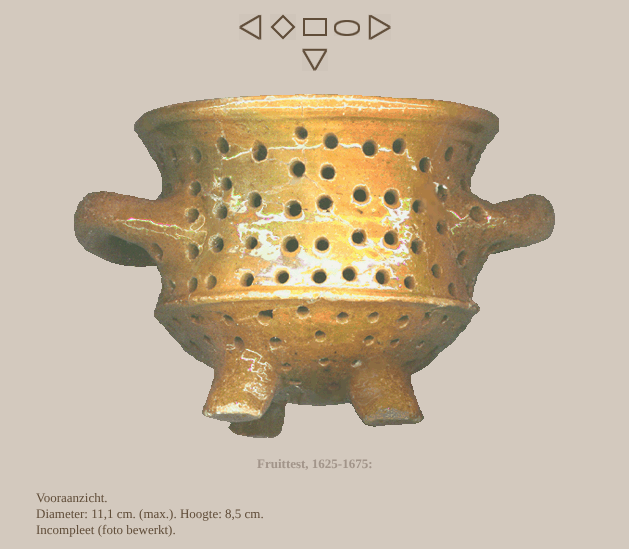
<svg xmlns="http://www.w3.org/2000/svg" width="629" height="549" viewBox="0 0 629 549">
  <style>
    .t1 { font: bold 13px Liberation Serif; fill: #a2958a; }
    .t2 { font: 13px Liberation Serif; fill: #604d39; }
  </style>
  <rect width="100%" height="100%" fill="#d3c9be"/>
  <image x="239" y="14" width="23" height="26" href="images/1.png"/>
  <image x="270" y="14" width="26" height="26" href="images/2.png"/>
  <image x="303" y="18" width="24" height="18" href="images/3.png"/>
  <image x="334" y="20" width="26" height="16" href="images/4.png"/>
  <image x="368" y="14" width="23" height="26" href="images/5.png"/>
  <image x="302" y="48" width="26" height="23" href="images/6.png"/>
  <image x="74" y="94" width="481" height="344" href="images/7.png"/>
  <text x="257" y="468" class="t1">Fruittest, 1625-1675:</text>
  <text x="36" y="502" class="t2">Vooraanzicht.</text>
  <text x="36" y="518" class="t2">Diameter: 11,1 cm. (max.). Hoogte: 8,5 cm.</text>
  <text x="36" y="534" class="t2">Incompleet (foto bewerkt).</text>
</svg>
